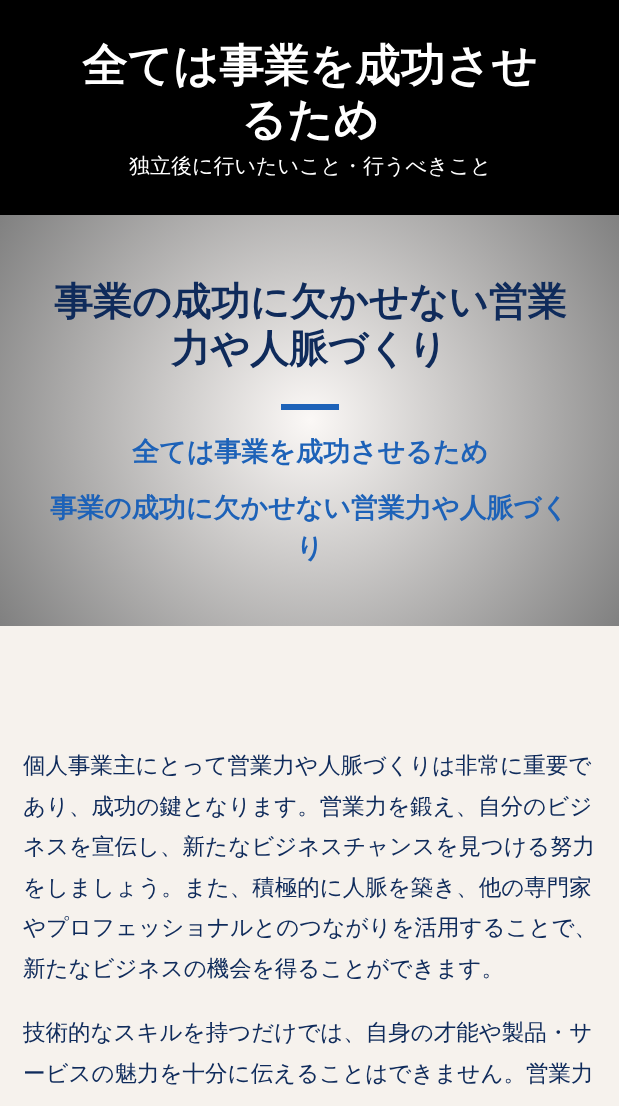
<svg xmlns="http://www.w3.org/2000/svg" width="619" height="1106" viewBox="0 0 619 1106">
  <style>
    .t1 { font: bold 45px WenQuanYi Zen Hei; fill: #fff; }
    .t2 { font: 500 21px WenQuanYi Zen Hei; fill: #fff; }
    .t3 { font: bold 39px WenQuanYi Zen Hei; fill: #0f2b5b; }
    .t4 { font: bold 27px WenQuanYi Zen Hei; fill: #1d62b8; }
    .t5 { font: 500 22.5px WenQuanYi Zen Hei; fill: #0f2b5b; }
  </style>
  <defs>
    <radialGradient id="g1" gradientUnits="userSpaceOnUse" cx="310" cy="420" r="372"><stop offset="0" stop-color="#fbf8f6"/><stop offset="1" stop-color="#808080"/></radialGradient>
  </defs>
  <rect width="100%" height="100%" fill="#f6f2ed"/>
  <rect x="0" y="0" width="619" height="215" fill="#000"/>
  <text x="82" y="81" class="t1">全ては事業を成功させ</text>
  <text x="241" y="135" class="t1">るため</text>
  <text x="129" y="173" class="t2">独立後に行いたいこと・行うべきこと</text>
  <rect x="0" y="215" width="619" height="411" fill="url(#g1)"/>
  <text x="54" y="315" class="t3">事業の成功に欠かせない営業</text>
  <text x="171" y="362" class="t3">力や人脈づくり</text>
  <rect x="281" y="404" width="58" height="6" fill="#1d62b8"/>
  <text x="132" y="461" class="t4">全ては事業を成功させるため</text>
  <text x="50" y="517" class="t4">事業の成功に欠かせない営業力や人脈づく</text>
  <text x="296" y="557" class="t4">り</text>
  <text x="23" y="773" class="t5">個人事業主にとって営業力や人脈づくりは非常に重要で</text>
  <text x="23" y="814" class="t5">あり、成功の鍵となります。営業力を鍛え、自分のビジ</text>
  <text x="23" y="854" class="t5">ネスを宣伝し、新たなビジネスチャンスを見つける努力</text>
  <text x="23" y="895" class="t5">をしましょう。また、積極的に人脈を築き、他の専門家</text>
  <text x="23" y="935" class="t5">やプロフェッショナルとのつながりを活用することで、</text>
  <text x="23" y="976" class="t5">新たなビジネスの機会を得ることができます。</text>
  <text x="23" y="1040" class="t5">技術的なスキルを持つだけでは、自身の才能や製品・サ</text>
  <text x="23" y="1081" class="t5">ービスの魅力を十分に伝えることはできません。営業力</text>
</svg>
